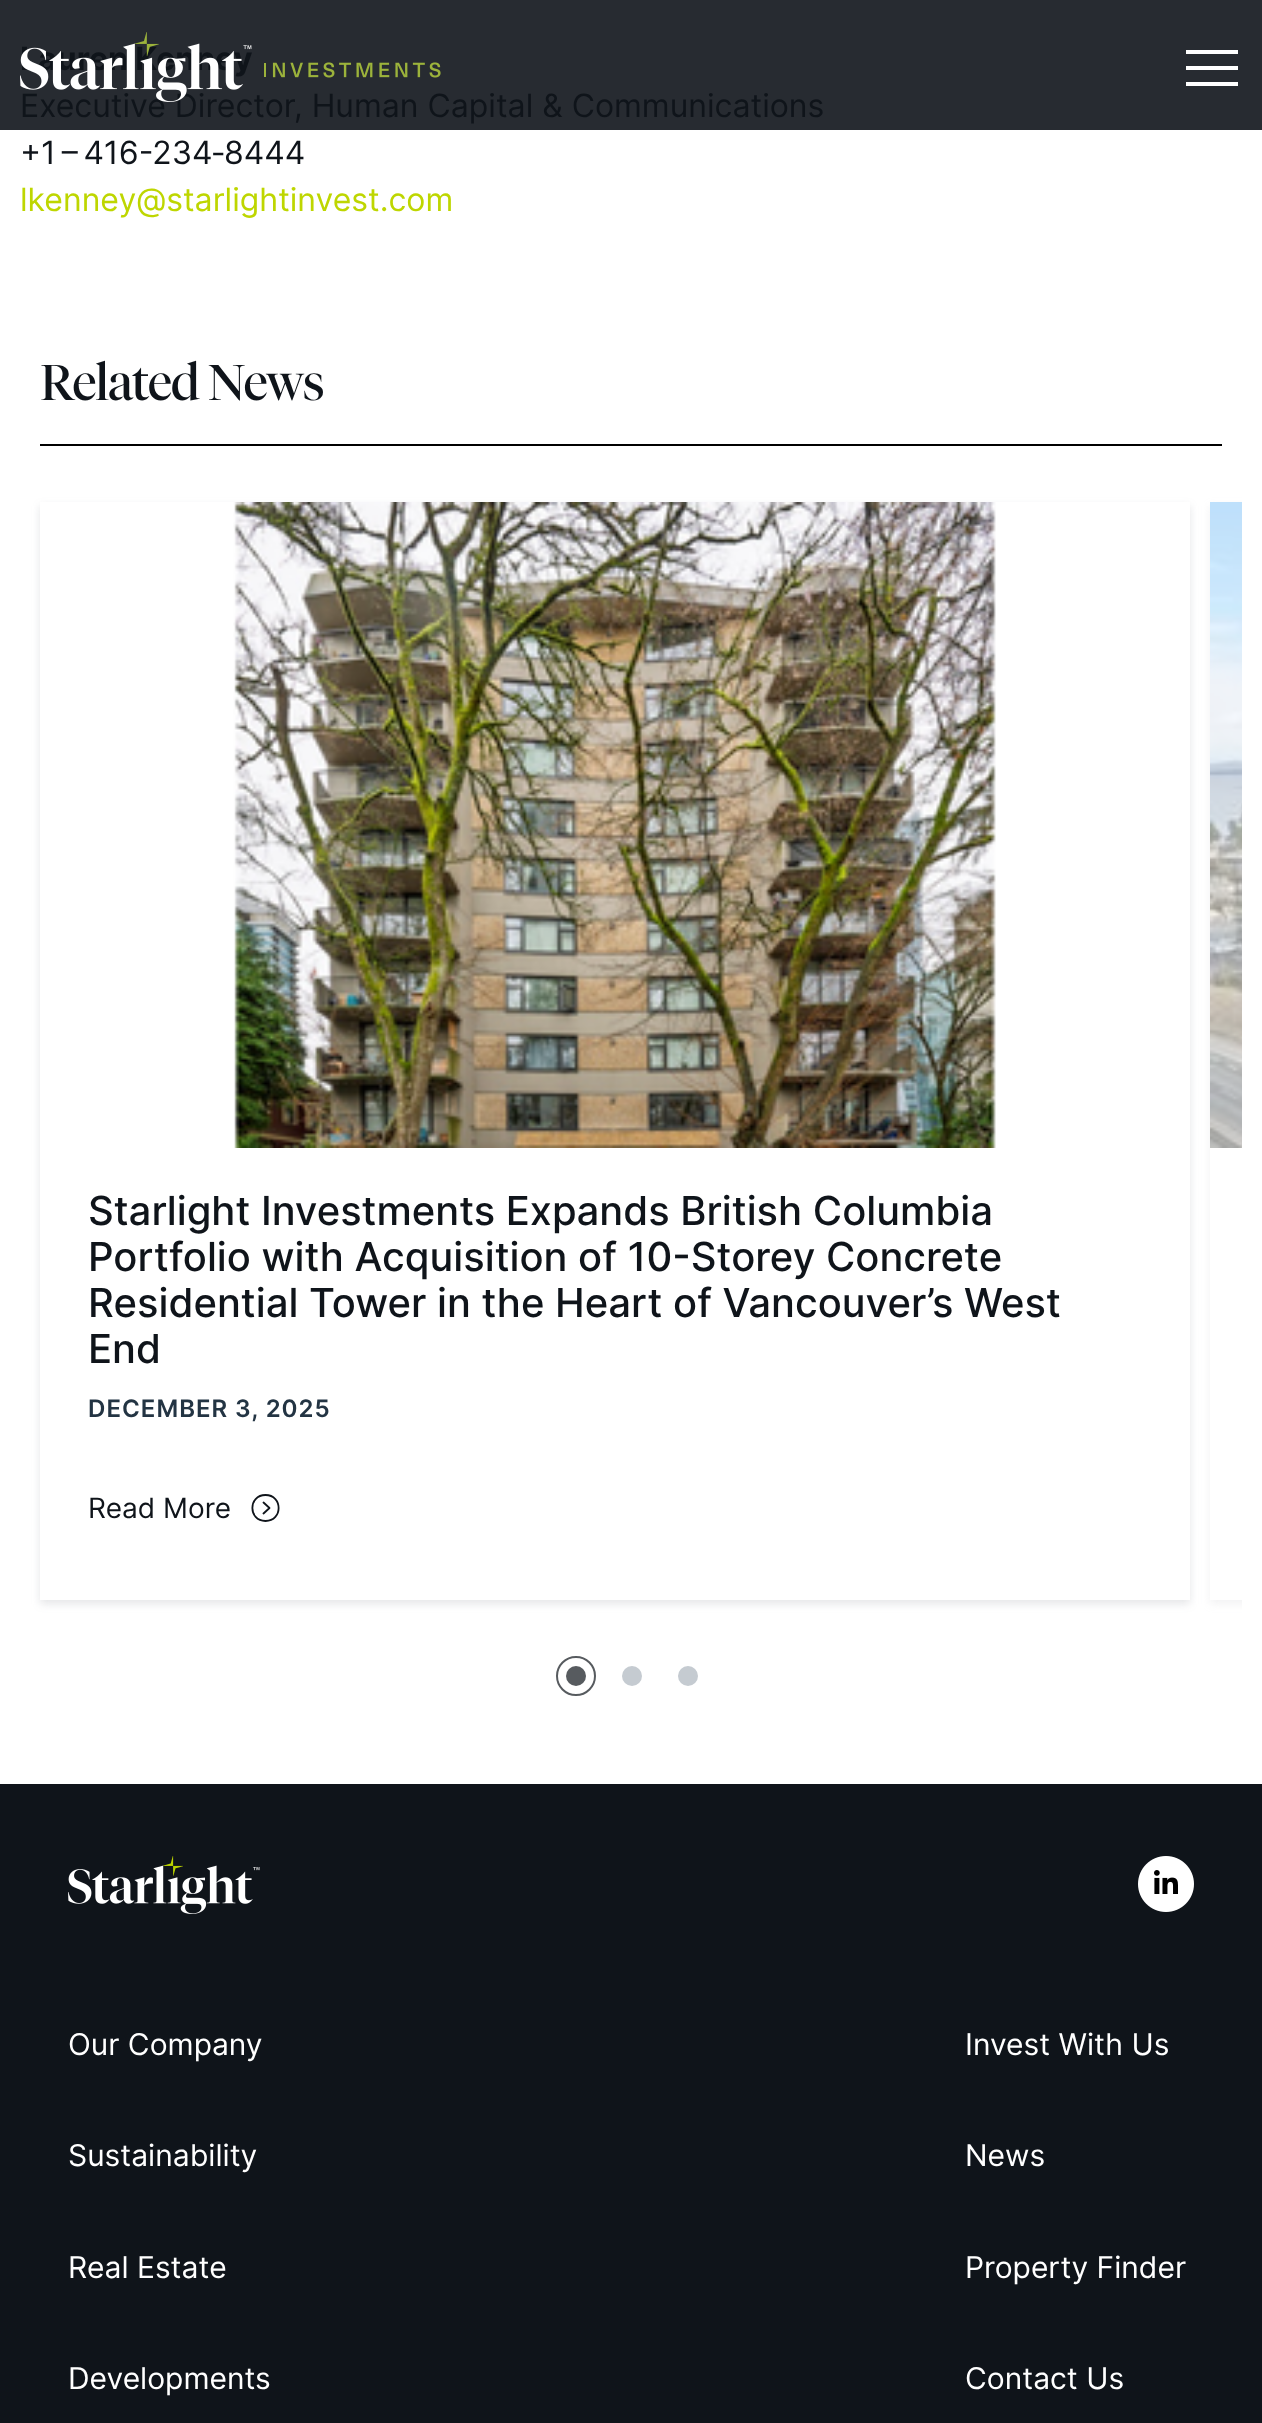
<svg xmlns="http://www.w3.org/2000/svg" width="1262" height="2423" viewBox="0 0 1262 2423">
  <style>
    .t1 { font: bold 32px Inter; fill: #0f141a; }
    .t2 { font: 32px Inter; fill: #0f141a; }
    .t3 { font: 32px Inter; fill: #bed600; }
    .t4 { font: 50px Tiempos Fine; letter-spacing: -1px; fill: #0f141a; }
    .t5 { font: 500 40px Inter; fill: #0f141a; }
    .t6 { font: 600 24px Inter; letter-spacing: 1px; fill: #233443; }
    .t7 { font: 28px Inter; fill: #0f141a; }
    .t8 { font: 30px Inter; fill: #fff; }
  </style>
  <defs>
    <clipPath id="clip1"><path d="M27 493H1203V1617H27ZM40 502H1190V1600H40Z" clip-rule="evenodd"/></clipPath>
    <clipPath id="clip2"><rect x="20" y="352" width="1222" height="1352"/></clipPath>
    <clipPath id="clip3"><path d="M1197 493H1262V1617H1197ZM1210 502H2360V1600H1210Z" clip-rule="evenodd"/></clipPath>
  </defs>
  <rect width="100%" height="100%" fill="#fff"/>
  <rect x="0" y="0" width="1262" height="130" fill="#272b31"/>
  <text x="20" y="70" class="t1">Lauren Kenney</text>
  <text x="20" y="117" class="t2">Executive Director, Human Capital &amp; Communications</text>
  <image x="20" y="32" width="421" height="70" href="images/1.png"/>
  <rect x="1186" y="50" width="52" height="4" fill="#fff"/>
  <rect x="1186" y="66" width="52" height="4" fill="#fff"/>
  <rect x="1186" y="82" width="52" height="4" fill="#fff"/>
  <text x="20" y="164" class="t2">+1 – 416-234‑8444</text>
  <text x="20" y="211" class="t3">lkenney@starlightinvest.com</text>
  <rect x="40" y="444" width="1182" height="2" fill="#000"/>
  <text x="40" y="400" class="t4">Related News</text>
  <g clip-path="url(#clip1)">
    <rect x="40" y="506" width="1150" height="1098" fill="#60617029" filter="blur(4px)"/>
  </g>
  <image x="233" y="502" width="763" height="646" href="images/2.png"/>
  <text x="88" y="1225" class="t5">Starlight Investments Expands British Columbia</text>
  <text x="88" y="1271" class="t5">Portfolio with Acquisition of 10-Storey Concrete</text>
  <text x="88" y="1317" class="t5">Residential Tower in the Heart of Vancouver’s West</text>
  <text x="88" y="1363" class="t5">End</text>
  <text x="88" y="1417" class="t6">DECEMBER 3, 2025</text>
  <text x="88" y="1518" class="t7">Read More</text>
  <path d="M265.5 1521C283 1521 283 1495 265.5 1495C248 1495 248 1521 265.5 1521ZM263.5 1513.5L269.5 1508L263.5 1502.5" fill="none" stroke="#0f141a" stroke-width="1.8" stroke-linecap="round" stroke-linejoin="round"/>
  <g clip-path="url(#clip2)">
    <g clip-path="url(#clip3)">
      <rect x="1210" y="506" width="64" height="1098" fill="#afb0b729" filter="blur(4px)"/>
    </g>
  </g>
  <image x="1210" y="502" width="32" height="646" href="images/3.png"/>
  <circle cx="576" cy="1676" r="19" fill="none" stroke="#575b5f" stroke-width="2"/>
  <circle cx="576" cy="1676" r="10" fill="#575b5f"/>
  <circle cx="632" cy="1676" r="10" fill="#c5cbd1"/>
  <circle cx="688" cy="1676" r="10" fill="#c5cbd1"/>
  <rect x="0" y="1784" width="1262" height="639" fill="#0f141a"/>
  <image x="68" y="1856" width="192" height="58" href="images/4.png"/>
  <image x="1138" y="1856" width="56" height="56" href="images/5.png"/>
  <text x="68" y="2055" class="t8">Our Company</text>
  <text x="68" y="2166" class="t8">Sustainability</text>
  <text x="68" y="2278" class="t8">Real Estate</text>
  <text x="68" y="2389" class="t8">Developments</text>
  <text x="965" y="2055" class="t8">Invest With Us</text>
  <text x="965" y="2166" class="t8">News</text>
  <text x="965" y="2278" class="t8">Property Finder</text>
  <text x="965" y="2389" class="t8">Contact Us</text>
</svg>
